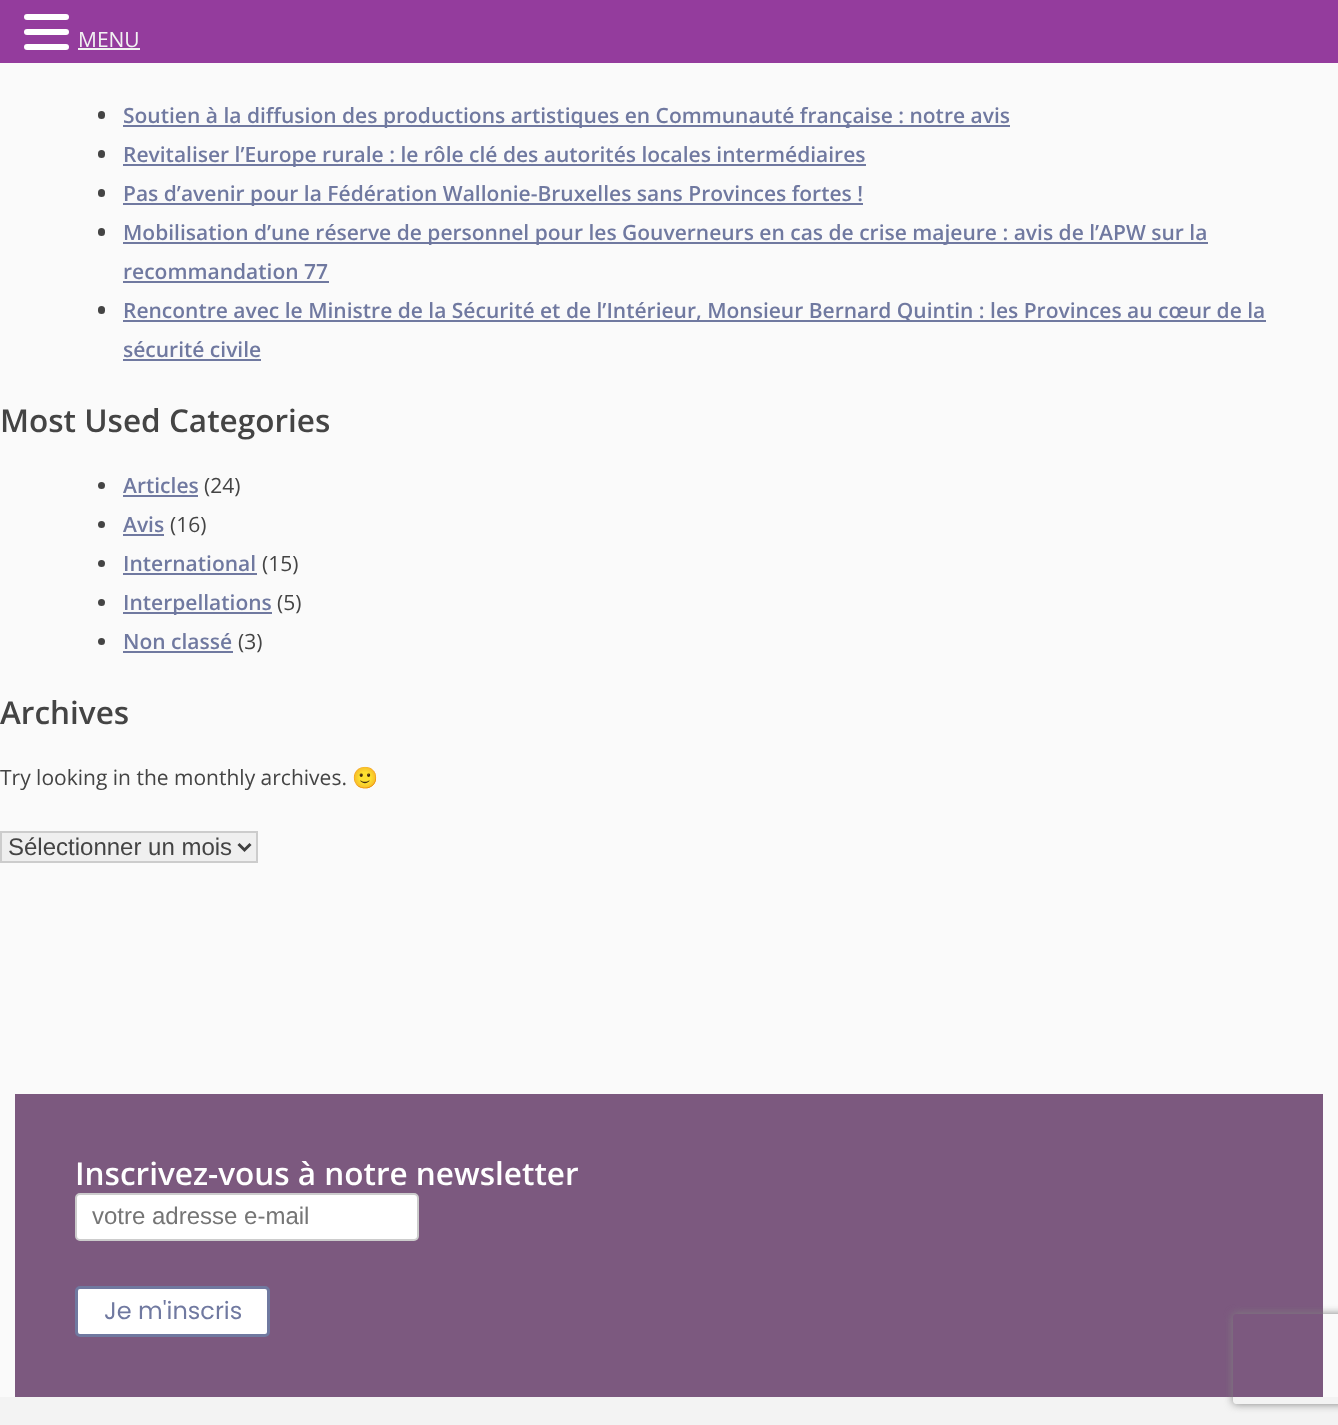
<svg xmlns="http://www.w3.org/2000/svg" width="1338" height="1425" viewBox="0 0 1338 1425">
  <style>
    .t1 { font: 21px Open Sans; fill: #f2f2f2; }
    .t2 { font: 600 21px Open Sans; fill: #7079a0; }
    .t3 { font: 600 31.5px Open Sans; fill: #444; }
    .t4 { font: 21px Open Sans; fill: #444; }
    .t5 { font: 21px Noto Color Emoji; fill: #444; }
    .t6 { font: 24px Liberation Sans; fill: #444; }
    .t7 { font: 600 31.5px Open Sans; fill: #fff; }
    .t8 { font: 24px Liberation Sans; fill: #757575; }
    .t9 { font: 24px Poppins; fill: #7079a0; }
  </style>
  <defs>
    <clipPath id="clip1"><path d="M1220 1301H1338V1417H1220ZM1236 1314H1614C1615.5 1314 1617 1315.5 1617 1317V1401C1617 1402.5 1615.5 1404 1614 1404H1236C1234.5 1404 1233 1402.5 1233 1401V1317C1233 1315.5 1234.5 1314 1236 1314Z" clip-rule="evenodd"/></clipPath>
  </defs>
  <rect width="100%" height="100%" fill="#fafafa"/>
  <rect x="0" y="0" width="1338" height="63" fill="#943c9d"/>
  <rect x="24" y="14" width="45" height="6" rx="3" fill="#fff"/>
  <rect x="24" y="29" width="45" height="6" rx="3" fill="#fff"/>
  <rect x="24" y="44" width="45" height="6" rx="3" fill="#fff"/>
  <text x="78" y="47" class="t1">MENU</text>
  <rect x="78" y="48" width="62" height="2" fill="#f2f2f2"/>
  <rect x="98" y="111" width="7" height="8" rx="3.5" fill="#444"/>
  <rect x="123" y="125" width="887" height="2" fill="#7079a0"/>
  <text x="123" y="123" class="t2">Soutien à la diffusion des productions artistiques en Communauté française : notre avis</text>
  <rect x="98" y="150" width="7" height="8" rx="3.5" fill="#444"/>
  <rect x="123" y="164" width="743" height="2" fill="#7079a0"/>
  <text x="123" y="162" class="t2">Revitaliser l’Europe rurale : le rôle clé des autorités locales intermédiaires</text>
  <rect x="98" y="189" width="7" height="8" rx="3.5" fill="#444"/>
  <rect x="123" y="203" width="740" height="2" fill="#7079a0"/>
  <text x="123" y="201" class="t2">Pas d’avenir pour la Fédération Wallonie-Bruxelles sans Provinces fortes !</text>
  <rect x="98" y="228" width="7" height="8" rx="3.5" fill="#444"/>
  <rect x="123" y="242" width="1085" height="2" fill="#7079a0"/>
  <text x="123" y="240" class="t2">Mobilisation d’une réserve de personnel pour les Gouverneurs en cas de crise majeure : avis de l’APW sur la</text>
  <text x="123" y="279" class="t2">recommandation 77</text>
  <rect x="123" y="281" width="206" height="2" fill="#7079a0"/>
  <rect x="98" y="306" width="7" height="8" rx="3.5" fill="#444"/>
  <rect x="123" y="320" width="1143" height="2" fill="#7079a0"/>
  <text x="123" y="318" class="t2">Rencontre avec le Ministre de la Sécurité et de l’Intérieur, Monsieur Bernard Quintin : les Provinces au cœur de la</text>
  <text x="123" y="357" class="t2">sécurité civile</text>
  <rect x="123" y="359" width="138" height="2" fill="#7079a0"/>
  <text x="0" y="432" class="t3">Most Used Categories</text>
  <circle cx="101.5" cy="485.5" r="3.5" fill="#444"/>
  <text x="123" y="493" class="t2">Articles</text>
  <rect x="123" y="495" width="75" height="2" fill="#7079a0"/>
  <text x="204" y="493" class="t4">(24)</text>
  <circle cx="101.5" cy="524.5" r="3.5" fill="#444"/>
  <text x="123" y="532" class="t2">Avis</text>
  <rect x="123" y="534" width="41" height="2" fill="#7079a0"/>
  <text x="170" y="532" class="t4">(16)</text>
  <circle cx="101.5" cy="563.5" r="3.5" fill="#444"/>
  <text x="123" y="571" class="t2">International</text>
  <rect x="123" y="573" width="134" height="2" fill="#7079a0"/>
  <text x="262" y="571" class="t4">(15)</text>
  <circle cx="101.5" cy="602.5" r="3.5" fill="#444"/>
  <rect x="123" y="612" width="149" height="2" fill="#7079a0"/>
  <text x="123" y="610" class="t2">Interpellations</text>
  <text x="277" y="610" class="t4">(5)</text>
  <circle cx="101.5" cy="641.5" r="3.5" fill="#444"/>
  <text x="123" y="649" class="t2">Non classé</text>
  <rect x="123" y="651" width="110" height="2" fill="#7079a0"/>
  <text x="238" y="649" class="t4">(3)</text>
  <text x="0" y="724" class="t3">Archives</text>
  <text x="0" y="785" class="t4">Try looking in the monthly archives.</text>
  <text x="352" y="785" class="t5">🙂</text>
  <rect x="1" y="832" width="256" height="30" fill="#efefef" stroke="#ccc" stroke-width="2"/>
  <path d="M238.5 844L244.5 850L250.5 844" fill="none" stroke="#404040" stroke-width="3"/>
  <text x="8" y="855" class="t6">Sélectionner un mois</text>
  <rect x="15" y="1094" width="1308" height="303" fill="#7c597f"/>
  <text x="75" y="1185" class="t7">Inscrivez-vous à notre newsletter</text>
  <rect x="76" y="1194" width="342" height="46" rx="4" fill="#fff" stroke="#ccc" stroke-width="2"/>
  <text x="92" y="1224" class="t8">votre adresse e-mail</text>
  <rect x="76.5" y="1287.5" width="192" height="48" rx="3.5" fill="#fff" stroke="#7079a0" stroke-width="3"/>
  <text x="104" y="1319" class="t9">Je m'inscris</text>
  <rect x="0" y="1397" width="1338" height="28" fill="#f3f3f3"/>
  <g clip-path="url(#clip1)">
    <rect x="1233" y="1314" width="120" height="90" rx="3" fill="#808080" filter="blur(4px)"/>
  </g>
</svg>
